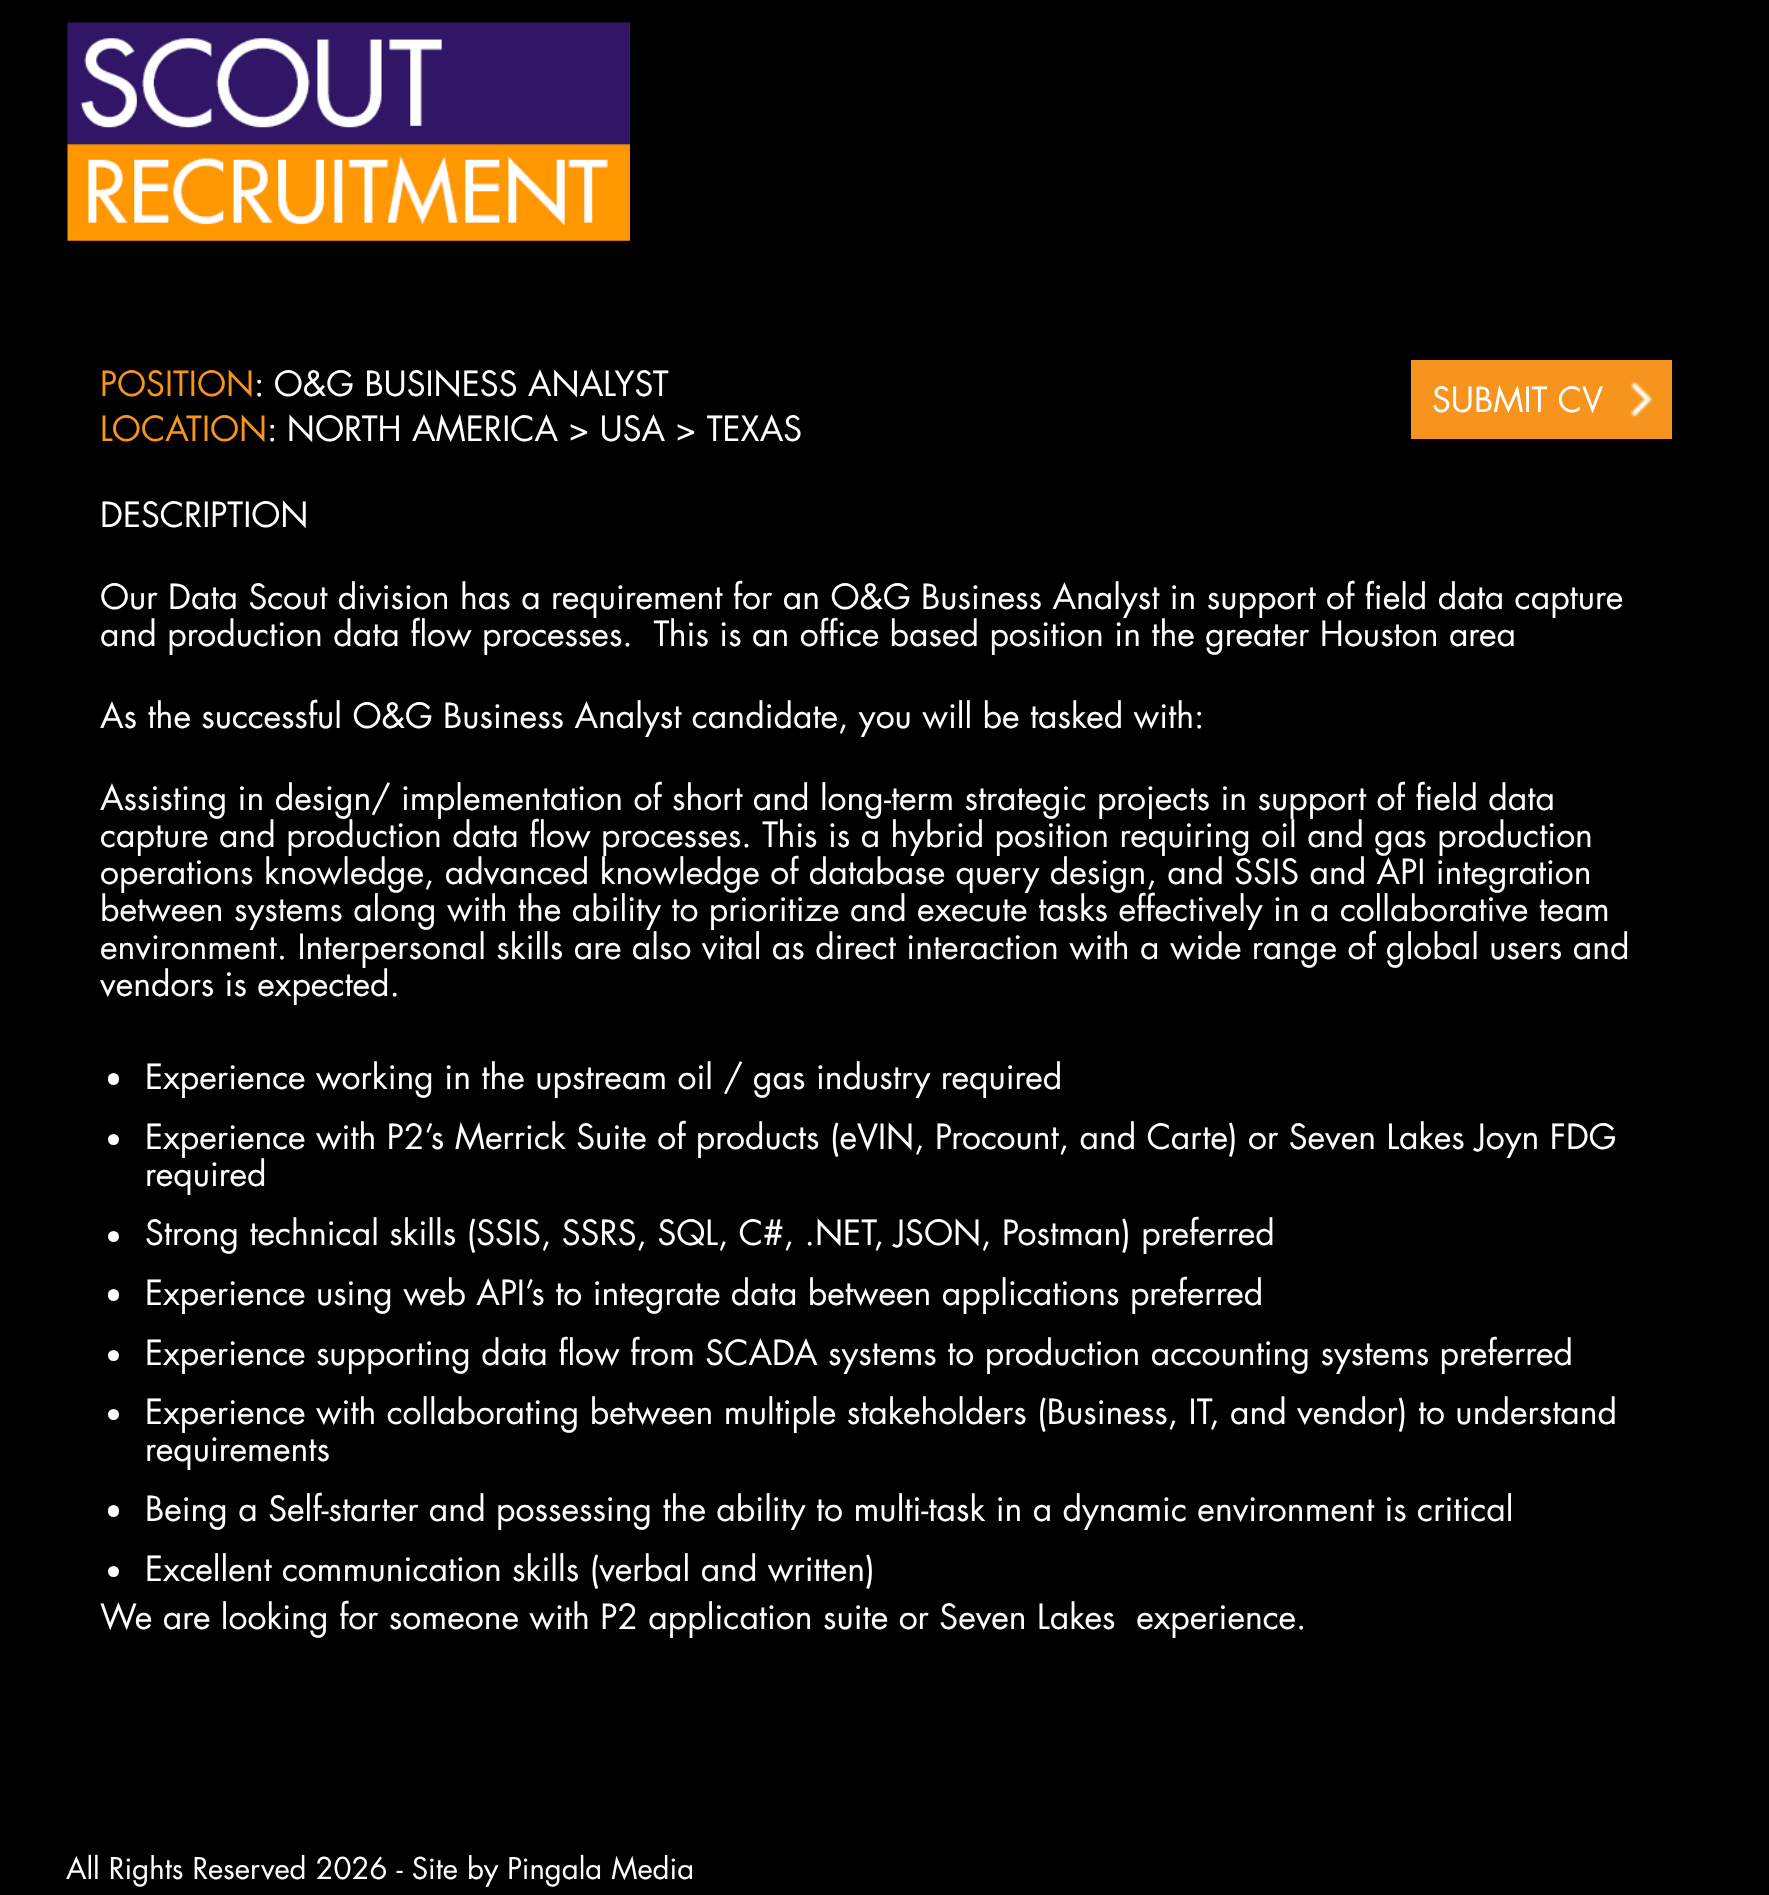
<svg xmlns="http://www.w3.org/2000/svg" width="1769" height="1895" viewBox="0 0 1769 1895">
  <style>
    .t1 { font: 33.75px Futura; fill: #f7941d; }
    .t2 { font: 33.75px Futura; fill: #fff; }
    .t3 { font: 29.25px Futura; fill: #fff; }
  </style>
  <rect width="100%" height="100%" fill="#000"/>
  <image x="67" y="22" width="563" height="219" href="images/1.png"/>
  <text x="100" y="396" class="t1">POSITION</text>
  <text x="254" y="396" class="t2">: O&amp;G BUSINESS ANALYST</text>
  <text x="100" y="441" class="t1">LOCATION</text>
  <text x="267" y="441" class="t2">: NORTH AMERICA &gt; USA &gt; TEXAS</text>
  <rect x="1411" y="360" width="261" height="79" fill="#f7941d"/>
  <image x="1630" y="382" width="23" height="35" href="images/2.png"/>
  <text x="1432" y="412" class="t2">SUBMIT CV</text>
  <text x="100" y="527" class="t2">DESCRIPTION</text>
  <text x="100" y="609" class="t2">Our Data Scout division has a requirement for an O&amp;G Business Analyst in support of field data capture</text>
  <text x="100" y="646" class="t2" xml:space="preserve">and production data flow processes.  This is an office based position in the greater Houston area</text>
  <text x="100" y="728" class="t2">As the successful O&amp;G Business Analyst candidate, you will be tasked with:</text>
  <text x="100" y="810" class="t2">Assisting in design/ implementation of short and long-term strategic projects in support of field data</text>
  <text x="100" y="847" class="t2">capture and production data flow processes. This is a hybrid position requiring oil and gas production</text>
  <text x="100" y="884" class="t2">operations knowledge, advanced knowledge of database query design, and SSIS and API integration</text>
  <text x="100" y="921" class="t2">between systems along with the ability to prioritize and execute tasks effectively in a collaborative team</text>
  <text x="100" y="959" class="t2">environment. Interpersonal skills are also vital as direct interaction with a wide range of global users and</text>
  <text x="100" y="996" class="t2">vendors is expected.</text>
  <rect x="108" y="1073" width="11" height="12" rx="5.5" fill="#fff"/>
  <text x="145" y="1089" class="t2">Experience working in the upstream oil / gas industry required</text>
  <circle cx="113.5" cy="1139.5" r="5.5" fill="#fff"/>
  <text x="145" y="1149" class="t2">Experience with P2’s Merrick Suite of products (eVIN, Procount, and Carte) or Seven Lakes Joyn FDG</text>
  <text x="145" y="1186" class="t2">required</text>
  <circle cx="113.5" cy="1236.5" r="5.5" fill="#fff"/>
  <text x="145" y="1245" class="t2">Strong technical skills (SSIS, SSRS, SQL, C#, .NET, JSON, Postman) preferred</text>
  <rect x="108" y="1289" width="11" height="12" rx="5.5" fill="#fff"/>
  <text x="145" y="1305" class="t2">Experience using web API’s to integrate data between applications preferred</text>
  <circle cx="113.5" cy="1355.5" r="5.5" fill="#fff"/>
  <text x="145" y="1365" class="t2">Experience supporting data flow from SCADA systems to production accounting systems preferred</text>
  <circle cx="113.5" cy="1414.5" r="5.5" fill="#fff"/>
  <text x="145" y="1424" class="t2">Experience with collaborating between multiple stakeholders (Business, IT, and vendor) to understand</text>
  <text x="145" y="1461" class="t2">requirements</text>
  <rect x="108" y="1505" width="11" height="12" rx="5.5" fill="#fff"/>
  <text x="145" y="1521" class="t2">Being a Self-starter and possessing the ability to multi-task in a dynamic environment is critical</text>
  <circle cx="113.5" cy="1571.5" r="5.5" fill="#fff"/>
  <text x="145" y="1581" class="t2">Excellent communication skills (verbal and written)</text>
  <text x="100" y="1629" class="t2" xml:space="preserve">We are looking for someone with P2 application suite or Seven Lakes  experience.</text>
  <text x="66" y="1879" class="t3">All Rights Reserved 2026 - Site by Pingala Media</text>
</svg>
